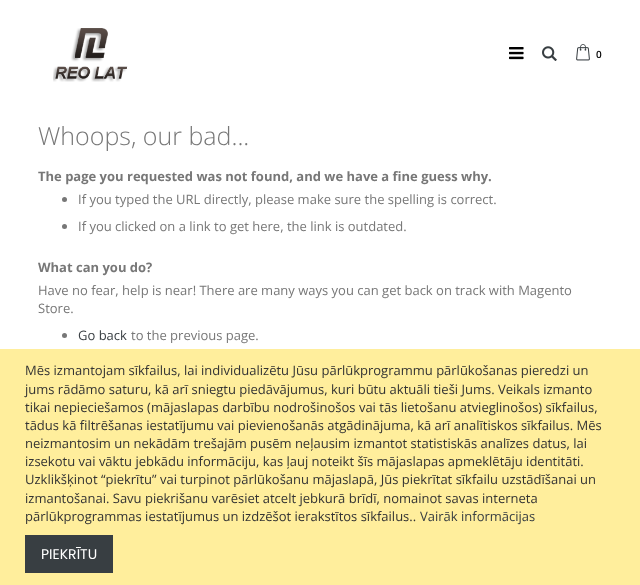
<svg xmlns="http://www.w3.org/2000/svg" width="640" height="585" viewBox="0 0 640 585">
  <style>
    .t1 { font: 600 10px Open Sans; fill: #000; }
    .t2 { font: 300 25px Open Sans; fill: #777; }
    .t3 { font: bold 13px Open Sans; fill: #777; }
    .t4 { font: 13px Open Sans; fill: #777; }
    .t5 { font: 13px Open Sans; fill: #383e42; }
    .t6 { font: 13px Open Sans; fill: #333; }
    .t7 { font: 14px Poppins; fill: #fff; }
  </style>
  <rect width="100%" height="100%" fill="#fff"/>
  <image x="53" y="28" width="75" height="54" href="images/1.png"/>
  <image x="509" y="47" width="15" height="13" href="images/2.png"/>
  <image x="542" y="46" width="15" height="15" href="images/3.png"/>
  <image x="576" y="44" width="14" height="17" href="images/4.png"/>
  <text x="596" y="58" class="t1">0</text>
  <text x="38" y="145" class="t2">Whoops, our bad...</text>
  <text x="38" y="181" class="t3">The page you requested was not found, and we have a fine guess why.</text>
  <circle cx="64.5" cy="199.5" r="2.5" fill="#777"/>
  <text x="78" y="204" class="t4">If you typed the URL directly, please make sure the spelling is correct.</text>
  <circle cx="64.5" cy="226.5" r="2.5" fill="#777"/>
  <text x="78" y="231" class="t4">If you clicked on a link to get here, the link is outdated.</text>
  <text x="38" y="272" class="t3">What can you do?</text>
  <text x="38" y="295" class="t4">Have no fear, help is near! There are many ways you can get back on track with Magento</text>
  <text x="38" y="313" class="t4">Store.</text>
  <circle cx="64.5" cy="335.5" r="2.5" fill="#777"/>
  <text x="78" y="340" class="t5">Go back</text>
  <text x="131" y="340" class="t4">to the previous page.</text>
  <rect x="0" y="349" width="640" height="236" fill="#ffee9c"/>
  <text x="25" y="375" class="t6">Mēs izmantojam sīkfailus, lai individualizētu Jūsu pārlūkprogrammu pārlūkošanas pieredzi un</text>
  <text x="25" y="394" class="t6">jums rādāmo saturu, kā arī sniegtu piedāvājumus, kuri būtu aktuāli tieši Jums. Veikals izmanto</text>
  <text x="25" y="412" class="t6">tikai nepieciešamos (mājaslapas darbību nodrošinošos vai tās lietošanu atvieglinošos) sīkfailus,</text>
  <text x="25" y="430" class="t6">tādus kā filtrēšanas iestatījumu vai pievienošanās atgādinājuma, kā arī analītiskos sīkfailus. Mēs</text>
  <text x="25" y="448" class="t6">neizmantosim un nekādām trešajām pusēm neļausim izmantot statistiskās analīzes datus, lai</text>
  <text x="25" y="466" class="t6">izsekotu vai vāktu jebkādu informāciju, kas ļauj noteikt šīs mājaslapas apmeklētāju identitāti.</text>
  <text x="25" y="484" class="t6">Uzklikšķinot “piekrītu” vai turpinot pārlūkošanu mājaslapā, Jūs piekrītat sīkfailu uzstādīšanai un</text>
  <text x="25" y="503" class="t6">izmantošanai. Savu piekrišanu varēsiet atcelt jebkurā brīdī, nomainot savas interneta</text>
  <text x="25" y="521" class="t6">pārlūkprogrammas iestatījumus un izdzēšot ierakstītos sīkfailus..</text>
  <text x="420" y="521" class="t5">Vairāk informācijas</text>
  <rect x="25" y="535" width="88" height="38" fill="#383e42"/>
  <text x="41" y="559" class="t7">PIEKRĪTU</text>
</svg>
